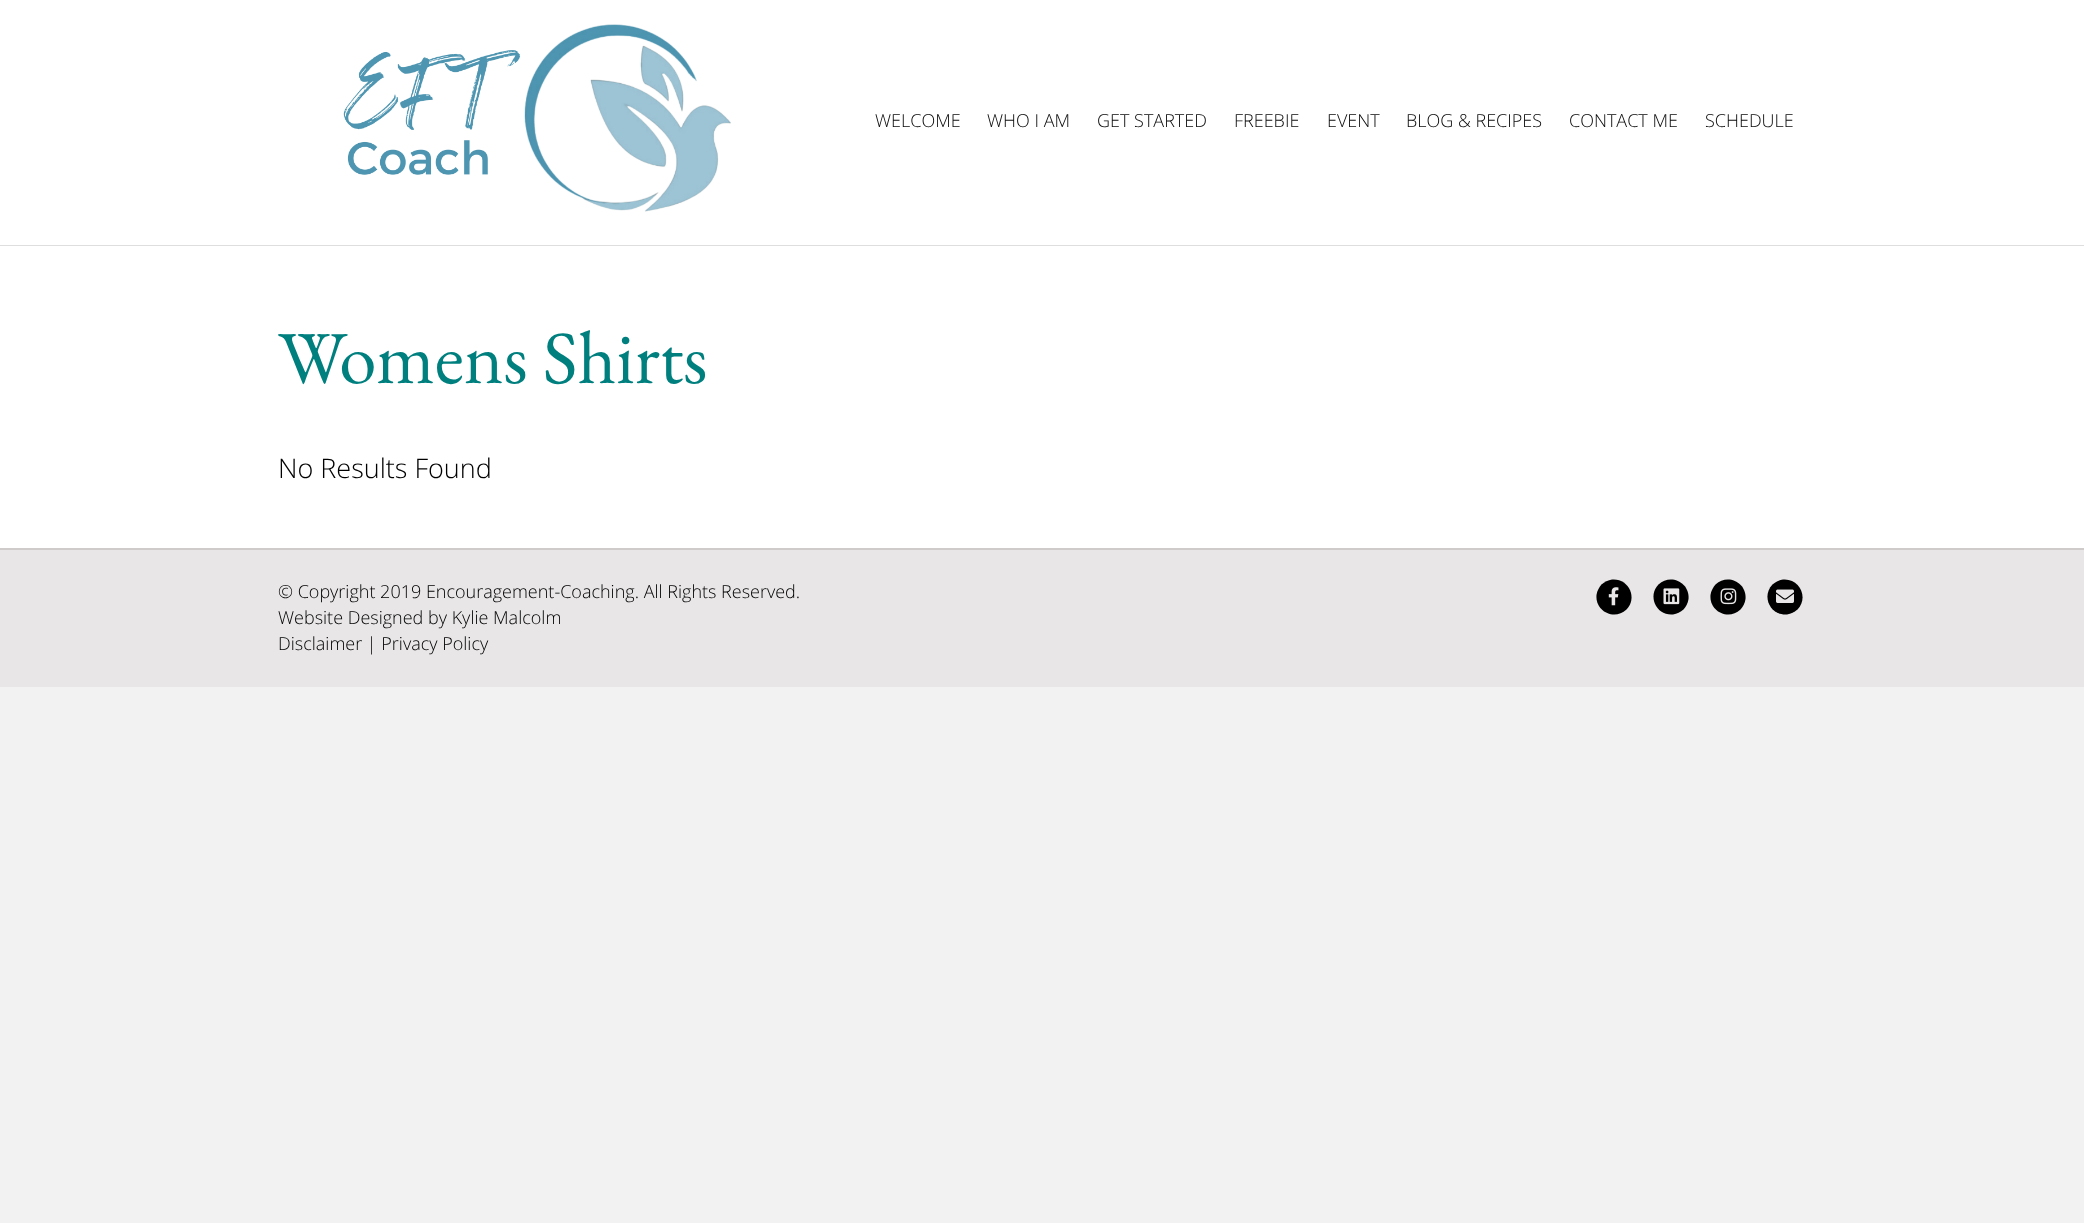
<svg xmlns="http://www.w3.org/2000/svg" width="2084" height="1223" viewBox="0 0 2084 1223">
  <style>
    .t1 { font: 300 18px Open Sans; fill: #0a0909; }
    .t2 { font: 75px EB Garamond; fill: #007f7f; }
    .t3 { font: 300 27px Open Sans; fill: #000; }
    .t4 { font: 300 18px Open Sans; fill: #000; }
  </style>
  <rect width="100%" height="100%" fill="#f2f2f2"/>
  <rect x="0" y="0" width="2084" height="245" fill="#fff"/>
  <rect x="0" y="245" width="2084" height="1" fill="#dedede"/>
  <image x="343" y="24" width="388" height="188" href="images/1.png"/>
  <text x="875" y="127" class="t1">WELCOME</text>
  <text x="987" y="127" class="t1">WHO I AM</text>
  <text x="1097" y="127" class="t1">GET STARTED</text>
  <text x="1234" y="127" class="t1">FREEBIE</text>
  <text x="1327" y="127" class="t1">EVENT</text>
  <text x="1406" y="127" class="t1">BLOG &amp; RECIPES</text>
  <text x="1569" y="127" class="t1">CONTACT ME</text>
  <text x="1705" y="127" class="t1">SCHEDULE</text>
  <rect x="0" y="246" width="2084" height="302" fill="#fff"/>
  <text x="278" y="383" class="t2">Womens Shirts</text>
  <text x="278" y="478" class="t3">No Results Found</text>
  <rect x="0" y="550" width="2084" height="137" fill="#e8e6e6"/>
  <rect x="0" y="548" width="2084" height="2" fill="#d0cbcb"/>
  <text x="278" y="598" class="t4">© Copyright 2019 Encouragement-Coaching. All Rights Reserved.</text>
  <text x="278" y="624" class="t4">Website Designed by Kylie Malcolm</text>
  <text x="278" y="650" class="t4">Disclaimer | Privacy Policy</text>
  <path d="M1601.5 584.5C1604.5 582 1608 580 1612 579.5C1628.5 578 1638 597.5 1626.5 609.5C1614.5 621 1595 611.5 1596.5 595C1597 591 1599 587.5 1601.5 584.5Z" fill="#000"/>
  <image x="1608" y="587" width="11" height="19" href="images/2.png"/>
  <path d="M1658.5 584.5C1670.5 573 1690 582.5 1688.5 599C1688 603 1686 606.5 1683.5 609.5C1680.5 612 1677 614 1673 614.5C1656.5 616 1647 596.5 1658.5 584.5Z" fill="#000"/>
  <image x="1663" y="588" width="17" height="17" href="images/3.png"/>
  <path d="M1715.5 584.5C1727.5 573 1747 582.5 1745.5 599C1745 603 1743 606.5 1740.5 609.5C1728.5 621 1709 611.5 1710.5 595C1711 591 1713 587.5 1715.5 584.5Z" fill="#000"/>
  <image x="1720" y="588" width="17" height="17" href="images/4.png"/>
  <path d="M1772.5 584.5C1775.5 582 1779 580 1783 579.5C1799.5 578 1809 597.5 1797.5 609.5C1794.5 612 1791 614 1787 614.5C1770.5 616 1761 596.5 1772.5 584.5Z" fill="#000"/>
  <image x="1776" y="589" width="18" height="14" href="images/5.png"/>
</svg>
